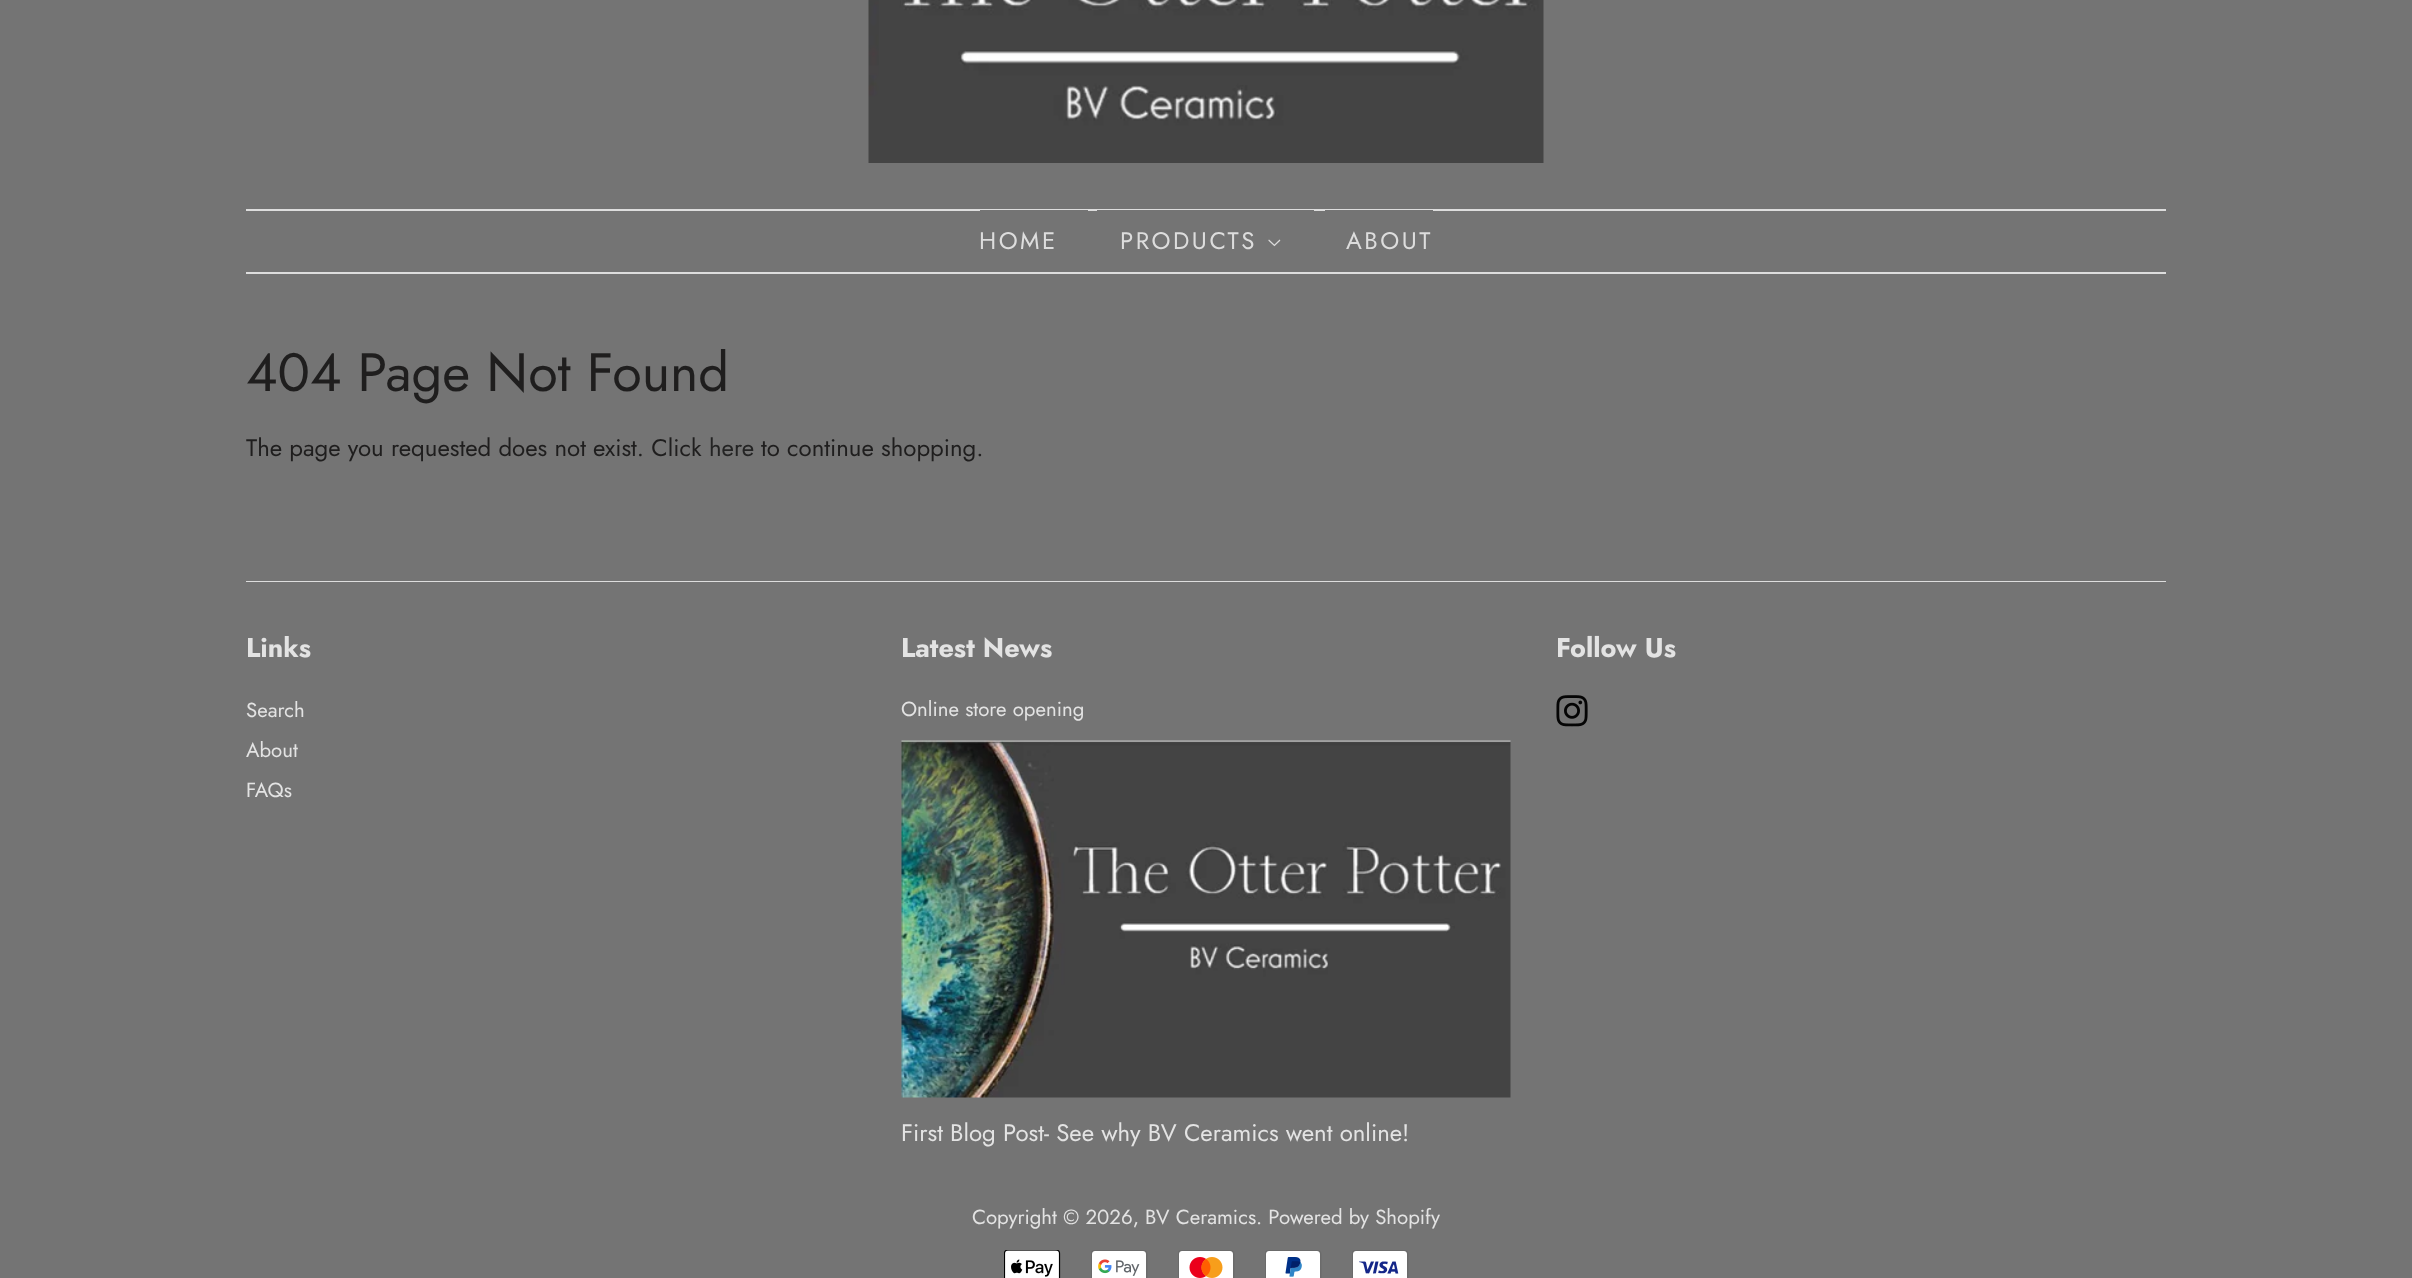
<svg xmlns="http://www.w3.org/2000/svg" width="2412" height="1278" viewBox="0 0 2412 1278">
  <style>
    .t1 { font: 24px Jost; letter-spacing: 2.5px; fill: #ddd; }
    .t2 { font: 54px Jost; fill: #1f1e1e; }
    .t3 { font: 24px Jost; fill: #1f1e1e; }
    .t4 { font: 24px Jost; fill: #242424; }
    .t5 { font: bold 27px Jost; fill: #e3e3e3; }
    .t6 { font: 20.4px Jost; fill: #e3e3e3; }
    .t7 { font: 24px Jost; fill: #e3e3e3; }
  </style>
  <rect width="100%" height="100%" fill="#747474"/>
  <image x="868" y="0" width="676" height="163" href="images/1.png"/>
  <rect x="246" y="209" width="1920" height="2" fill="#ddd"/>
  <rect x="246" y="272" width="1920" height="2" fill="#ddd"/>
  <rect x="980" y="210" width="108" height="1" fill="#747474"/>
  <text x="979" y="249" class="t1">HOME</text>
  <rect x="1097" y="210" width="217" height="1" fill="#747474"/>
  <text x="1120" y="249" class="t1">PRODUCTS</text>
  <image x="1268" y="239" width="13" height="8" href="images/2.png"/>
  <rect x="1325" y="210" width="108" height="1" fill="#747474"/>
  <text x="1346" y="249" class="t1">ABOUT</text>
  <text x="246" y="391" class="t2">404 Page Not Found</text>
  <text x="246" y="456" class="t3">The page you requested does not exist. Click</text>
  <text x="709" y="456" class="t4">here</text>
  <text x="761" y="456" class="t3">to continue shopping.</text>
  <rect x="246" y="581" width="1920" height="1" fill="#ddd"/>
  <text x="246" y="657" class="t5">Links</text>
  <text x="246" y="717" class="t6">Search</text>
  <text x="246" y="757" class="t6">About</text>
  <text x="246" y="797" class="t6">FAQs</text>
  <text x="901" y="657" class="t5">Latest News</text>
  <text x="901" y="716" class="t6">Online store opening</text>
  <image x="901" y="740" width="610" height="358" href="images/3.png"/>
  <text x="901" y="1141" class="t7">First Blog Post- See why BV Ceramics went online!</text>
  <text x="1556" y="657" class="t5">Follow Us</text>
  <image x="1556" y="695" width="32" height="32" href="images/4.png"/>
  <text x="972" y="1224" class="t6">Copyright © 2026, BV Ceramics. Powered by Shopify</text>
  <image x="1004" y="1250" width="57" height="28" href="images/5.png"/>
  <image x="1091" y="1250" width="57" height="28" href="images/6.png"/>
  <image x="1178" y="1250" width="57" height="28" href="images/7.png"/>
  <image x="1265" y="1250" width="57" height="28" href="images/8.png"/>
  <image x="1352" y="1250" width="57" height="28" href="images/9.png"/>
</svg>
